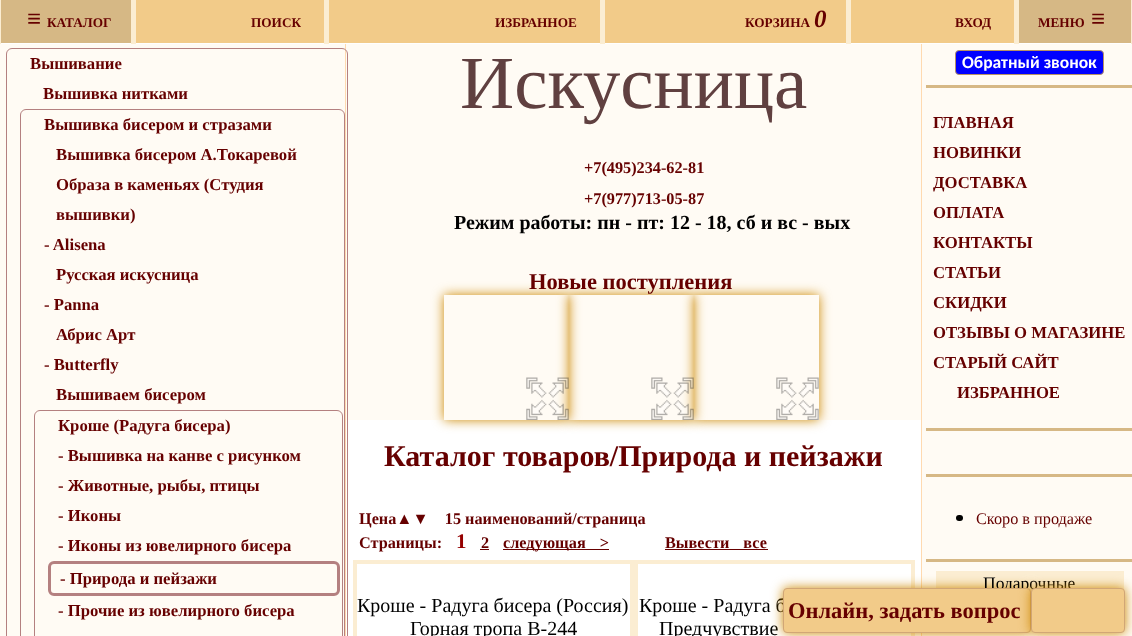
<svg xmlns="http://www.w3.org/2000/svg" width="1132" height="636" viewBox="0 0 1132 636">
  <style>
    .t1 { font: bold 25px Liberation Serif; fill: #600; }
    .t2 { font: bold 13.25px Liberation Serif; fill: #600; }
    .t3 { font: italic bold 25px Liberation Serif; fill: #600; }
    .t4 { font: bold 16.7px Liberation Serif; fill: #600; }
    .t5 { font: 75px Liberation Serif; fill: #604040; }
    .t6 { font: bold 16.25px Liberation Serif; fill: #600; }
    .t7 { font: bold 20px Liberation Serif; fill: #000; }
    .t8 { font: bold 22.5px Liberation Serif; fill: #600; }
    .t9 { font: bold 30px Liberation Serif; fill: #600; }
    .t10 { font: bold 21px Liberation Serif; fill: #950000; }
    .t11 { font: 20px Liberation Serif; fill: #000; }
    .t12 { font: 17.5px Liberation Serif; fill: #000; }
    .t13 { font: bold 17.5px Carlito; fill: #fff; }
    .t14 { font: 16.25px Liberation Serif; fill: #600; }
  </style>
  <defs>
    <clipPath id="clip1"><path d="M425 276H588V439H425ZM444 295H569V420H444Z" clip-rule="evenodd"/></clipPath>
    <clipPath id="clip2"><path d="M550 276H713V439H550ZM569 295H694V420H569Z" clip-rule="evenodd"/></clipPath>
    <clipPath id="clip3"><path d="M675 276H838V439H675ZM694 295H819V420H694Z" clip-rule="evenodd"/></clipPath>
  </defs>
  <rect width="100%" height="100%" fill="#fff"/>
  <rect x="0" y="0" width="1132" height="44" fill="#fbedd2"/>
  <rect x="1" y="0" width="130" height="43" fill="#d6b885"/>
  <rect x="1" y="43" width="130" height="1" fill="#fff"/>
  <text x="27" y="27" class="t1">≡</text>
  <text x="47" y="27" class="t2">КАТАЛОГ</text>
  <rect x="136" y="0" width="188" height="43" fill="#f2cb89"/>
  <rect x="136" y="43" width="188" height="1" fill="#fff"/>
  <text x="251" y="27" class="t2">ПОИСК</text>
  <rect x="329" y="0" width="271" height="43" fill="#f2cb89"/>
  <rect x="329" y="43" width="271" height="1" fill="#fff"/>
  <text x="495" y="27" class="t2">ИЗБРАННОЕ</text>
  <rect x="605" y="0" width="241" height="43" fill="#f2cb89"/>
  <rect x="605" y="43" width="241" height="1" fill="#fff"/>
  <text x="745" y="27" class="t2">КОРЗИНА</text>
  <text x="814" y="27" class="t3">0</text>
  <rect x="851" y="0" width="163" height="43" fill="#f2cb89"/>
  <rect x="851" y="43" width="163" height="1" fill="#fff"/>
  <text x="955" y="27" class="t2">ВХОД</text>
  <rect x="1019" y="0" width="112" height="43" fill="#d6b885"/>
  <rect x="1019" y="43" width="112" height="1" fill="#fff"/>
  <text x="1038" y="27" class="t2">МЕНЮ</text>
  <text x="1091" y="27" class="t1">≡</text>
  <rect x="0" y="44" width="345" height="592" fill="#fffbf4"/>
  <rect x="345" y="44" width="1" height="592" fill="#ffdab0"/>
  <rect x="346" y="44" width="575" height="376" fill="#fffbf4"/>
  <rect x="6.5" y="48.5" width="341" height="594" rx="5.5" fill="none" stroke="#b48080"/>
  <text x="30" y="69" class="t4">Вышивание</text>
  <text x="43" y="99" class="t4">Вышивка нитками</text>
  <rect x="20.5" y="109.5" width="324" height="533" rx="5.5" fill="none" stroke="#b48080"/>
  <text x="44" y="130" class="t4">Вышивка бисером и стразами</text>
  <text x="56" y="160" class="t4">Вышивка бисером А.Токаревой</text>
  <text x="56" y="190" class="t4">Образа в каменьях (Студия</text>
  <text x="56" y="220" class="t4">вышивки)</text>
  <text x="44" y="250" class="t4">- Alisena</text>
  <text x="56" y="280" class="t4">Русская искусница</text>
  <text x="44" y="310" class="t4">- Panna</text>
  <text x="56" y="340" class="t4">Абрис Арт</text>
  <text x="44" y="370" class="t4">- Butterfly</text>
  <text x="56" y="400" class="t4">Вышиваем бисером</text>
  <rect x="34.5" y="410.5" width="308" height="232" rx="5.5" fill="none" stroke="#b48080"/>
  <text x="58" y="431" class="t4">Кроше (Радуга бисера)</text>
  <text x="58" y="461" class="t4">- Вышивка на канве с рисунком</text>
  <text x="58" y="491" class="t4">- Животные, рыбы, птицы</text>
  <text x="58" y="521" class="t4">- Иконы</text>
  <text x="58" y="551" class="t4">- Иконы из ювелирного бисера</text>
  <rect x="49.5" y="562.5" width="289" height="32" rx="4.5" fill="none" stroke="#b48080" stroke-width="3"/>
  <text x="60" y="584" class="t4">- Природа и пейзажи</text>
  <text x="58" y="616" class="t4">- Прочие из ювелирного бисера</text>
  <text x="460" y="108" class="t5">Искусница</text>
  <text x="584" y="173" class="t6">+7(495)234-62-81</text>
  <text x="584" y="204" class="t6">+7(977)713-05-87</text>
  <text x="454" y="229" class="t7">Режим работы: пн - пт: 12 - 18, сб и вс - вых</text>
  <g clip-path="url(#clip1)">
    <rect x="444" y="295" width="125" height="125" fill="#c80" filter="blur(6px)"/>
  </g>
  <g clip-path="url(#clip2)">
    <rect x="569" y="295" width="125" height="125" fill="#c80" filter="blur(6px)"/>
  </g>
  <g clip-path="url(#clip3)">
    <rect x="694" y="295" width="125" height="125" fill="#c80" filter="blur(6px)"/>
  </g>
  <text x="529" y="289" class="t8">Новые поступления</text>
  <image x="526" y="377" width="43" height="43" href="images/1.png"/>
  <image x="651" y="377" width="43" height="43" href="images/1.png"/>
  <image x="776" y="377" width="43" height="43" href="images/2.png"/>
  <text x="384" y="466" class="t9">Каталог товаров/Природа и пейзажи</text>
  <text x="359" y="524" class="t6" xml:space="preserve">Цена▲▼    15 наименований/страница</text>
  <text x="359" y="548" class="t6">Страницы:</text>
  <text x="456" y="548" class="t10">1</text>
  <text x="481" y="548" class="t6">2</text>
  <rect x="480" y="549" width="9" height="1" fill="#600"/>
  <rect x="503" y="549" width="106" height="1" fill="#600"/>
  <text x="503" y="548" word-spacing="10" class="t6">следующая &gt;</text>
  <text x="665" y="548" word-spacing="10" class="t6">Вывести все</text>
  <rect x="665" y="549" width="103" height="1" fill="#600"/>
  <rect x="355" y="562" width="277" height="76" fill="none" stroke="#fbedd2" stroke-width="4"/>
  <text x="357" y="612" class="t11">Кроше - Радуга бисера (Россия)</text>
  <text x="410" y="635" class="t11">Горная тропа В-244</text>
  <rect x="636" y="562" width="277" height="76" fill="none" stroke="#fbedd2" stroke-width="4"/>
  <text x="639" y="612" class="t11">Кроше - Радуга б</text>
  <text x="659" y="635" class="t11">Предчувствие</text>
  <rect x="922" y="44" width="210" height="592" fill="#fffbf4"/>
  <rect x="921" y="44" width="1" height="592" fill="#ffdab0"/>
  <rect x="936" y="571" width="188" height="21" fill="#fbedd2"/>
  <rect x="783" y="588" width="248" height="45" rx="4" fill="#c80" filter="blur(6px)"/>
  <text x="983" y="589" class="t12">Подарочные</text>
  <rect x="783.5" y="588.5" width="247" height="44" rx="3.5" fill="#f2cb89" stroke="#d1a676"/>
  <text x="788" y="618" class="t8">Онлайн, задать вопрос</text>
  <rect x="1031" y="588" width="94" height="45" rx="4" fill="#c80" filter="blur(6px)"/>
  <rect x="1031.5" y="588.5" width="93" height="44" rx="3.5" fill="#f2cb89" stroke="#d1a676"/>
  <rect x="955.5" y="50.5" width="148" height="24" rx="3.5" fill="#00f" stroke="#b79265"/>
  <text x="962" y="68" class="t13">Обратный звонок</text>
  <rect x="926" y="85" width="206" height="3" fill="#d6b885"/>
  <text x="933" y="128" class="t4">ГЛАВНАЯ</text>
  <text x="933" y="158" class="t4">НОВИНКИ</text>
  <text x="933" y="188" class="t4">ДОСТАВКА</text>
  <text x="933" y="218" class="t4">ОПЛАТА</text>
  <text x="933" y="248" class="t4">КОНТАКТЫ</text>
  <text x="933" y="278" class="t4">СТАТЬИ</text>
  <text x="933" y="308" class="t4">СКИДКИ</text>
  <text x="933" y="338" class="t4">ОТЗЫВЫ О МАГАЗИНЕ</text>
  <text x="933" y="368" class="t4">СТАРЫЙ САЙТ</text>
  <text x="957" y="398" class="t4">ИЗБРАННОЕ</text>
  <rect x="926" y="428" width="206" height="3" fill="#d6b885"/>
  <rect x="926" y="474" width="206" height="3" fill="#d6b885"/>
  <rect x="956" y="515" width="7" height="6" rx="3" fill="#000"/>
  <text x="976" y="524" class="t14">Скоро в продаже</text>
  <rect x="926" y="559" width="206" height="3" fill="#d6b885"/>
</svg>
